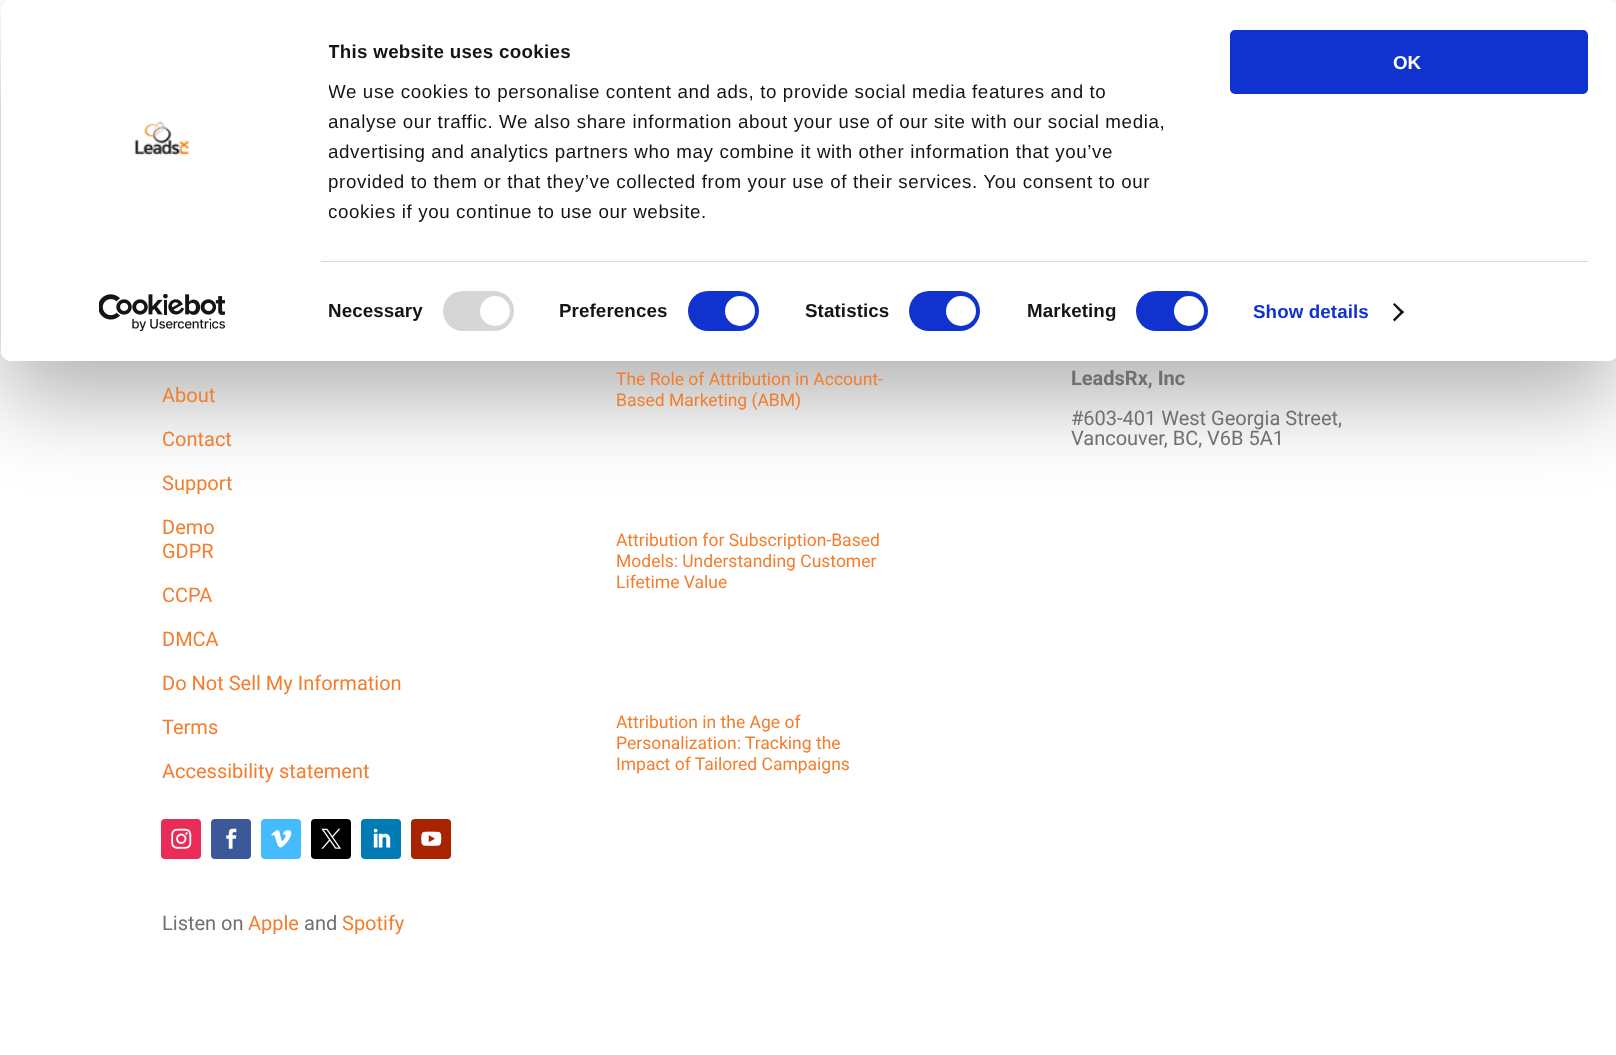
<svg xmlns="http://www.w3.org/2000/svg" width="1616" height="1055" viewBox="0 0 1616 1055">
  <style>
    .t1 { font: bold 18.75px Liberation Sans; letter-spacing: 0.3px; fill: #141414; }
    .t2 { font: 18.75px Liberation Sans; letter-spacing: 0.62px; fill: #141414; }
    .t3 { font: bold 18.75px Liberation Sans; letter-spacing: 0.1px; fill: #141414; }
    .t4 { font: bold 18.75px Liberation Sans; letter-spacing: 0.1px; fill: #1032cf; }
    .t5 { font: bold 18.75px Liberation Sans; fill: #fff; }
    .t6 { font: 20px Roboto; fill: #f27e2d; }
    .t7 { font: 20px Roboto; fill: #707070; }
    .t8 { font: 17.5px Roboto; fill: #f27e2d; }
    .t9 { font: bold 20px Roboto; fill: #707070; }
  </style>
  <defs>
    <clipPath id="clip1"><path d="M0 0H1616V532H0ZM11 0H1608C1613.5 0 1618 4.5 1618 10V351C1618 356.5 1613.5 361 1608 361H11C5.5 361 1 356.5 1 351V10C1 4.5 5.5 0 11 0Z" clip-rule="evenodd"/></clipPath>
    <clipPath id="clip2"><rect x="329" y="38" width="865" height="188"/></clipPath>
  </defs>
  <rect width="100%" height="100%" fill="#fff"/>
  <g clip-path="url(#clip1)">
    <rect x="1" y="38" width="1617" height="361" rx="10" fill="#0000004d" filter="blur(44px)"/>
  </g>
  <rect x="1" y="0" width="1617" height="361" rx="10" fill="#fff"/>
  <g clip-path="url(#clip2)">
    <text x="328" y="58" class="t1">This website uses cookies</text>
    <text x="328" y="98" class="t2">We use cookies to personalise content and ads, to provide social media features and to</text>
    <text x="328" y="128" class="t2">analyse our traffic. We also share information about your use of our site with our social media,</text>
    <text x="328" y="158" class="t2">advertising and analytics partners who may combine it with other information that you’ve</text>
    <text x="328" y="188" class="t2">provided to them or that they’ve collected from your use of their services. You consent to our</text>
    <text x="328" y="218" class="t2">cookies if you continue to use our website.</text>
  </g>
  <rect x="321" y="261" width="1267" height="1" fill="#d6d6d6"/>
  <text x="328" y="317" class="t3">Necessary</text>
  <rect x="443" y="291" width="71" height="40" rx="20" fill="#d6d6d6"/>
  <circle cx="495" cy="311" r="15" fill="#fff"/>
  <text x="559" y="317" class="t3">Preferences</text>
  <rect x="688" y="291" width="71" height="40" rx="20" fill="#1032cf"/>
  <circle cx="740" cy="311" r="15" fill="#fff"/>
  <text x="805" y="317" class="t3">Statistics</text>
  <rect x="909" y="291" width="71" height="40" rx="20" fill="#1032cf"/>
  <circle cx="961" cy="311" r="15" fill="#fff"/>
  <text x="1027" y="317" class="t3">Marketing</text>
  <rect x="1136" y="291" width="72" height="40" rx="20" fill="#1032cf"/>
  <circle cx="1189" cy="311" r="15" fill="#fff"/>
  <text x="1253" y="318" class="t4">Show details</text>
  <path d="M1394.5 303L1404 312L1402 314L1393 304.5Z" fill="#141414"/>
  <path d="M1402 310.5L1404 312L1394.5 321.5L1393 319.5Z" fill="#141414"/>
  <rect x="1231.5" y="31.5" width="355" height="61" rx="3.5" fill="#1032cf" stroke="#1032cf" stroke-width="3"/>
  <text x="1393" y="69" class="t5">OK</text>
  <image x="134" y="121" width="56" height="35" href="images/1.png"/>
  <image x="99" y="294" width="126" height="37" href="images/2.png"/>
  <text x="162" y="402" class="t6">About</text>
  <text x="162" y="446" class="t6">Contact</text>
  <text x="162" y="490" class="t6">Support</text>
  <text x="162" y="534" class="t6">Demo</text>
  <text x="162" y="558" class="t6">GDPR</text>
  <text x="162" y="602" class="t6">CCPA</text>
  <text x="162" y="646" class="t6">DMCA</text>
  <text x="162" y="690" class="t6">Do Not Sell My Information</text>
  <text x="162" y="734" class="t6">Terms</text>
  <text x="162" y="778" class="t6">Accessibility statement</text>
  <rect x="161" y="819" width="40" height="40" rx="4" fill="#ea2c59"/>
  <image x="171" y="828" width="21" height="21" href="images/3.png"/>
  <rect x="211" y="819" width="40" height="40" rx="4" fill="#3b5998"/>
  <image x="226" y="828" width="11" height="21" href="images/4.png"/>
  <rect x="261" y="819" width="40" height="40" rx="4" fill="#45bbff"/>
  <image x="271" y="830" width="21" height="18" href="images/5.png"/>
  <rect x="311" y="819" width="40" height="40" rx="4" fill="#000"/>
  <image x="321" y="828" width="21" height="21" href="images/6.png"/>
  <rect x="361" y="819" width="40" height="40" rx="4" fill="#007bb6"/>
  <image x="373" y="828" width="18" height="20" href="images/7.png"/>
  <rect x="411" y="819" width="40" height="40" rx="4" fill="#a82400"/>
  <image x="421" y="831" width="21" height="15" href="images/8.png"/>
  <text x="162" y="930" class="t7">Listen on</text>
  <text x="248" y="930" class="t6">Apple</text>
  <text x="304" y="930" class="t7">and</text>
  <text x="342" y="930" class="t6">Spotify</text>
  <text x="616" y="385" class="t8">The Role of Attribution in Account-</text>
  <text x="616" y="406" class="t8">Based Marketing (ABM)</text>
  <text x="616" y="546" class="t8">Attribution for Subscription-Based</text>
  <text x="616" y="567" class="t8">Models: Understanding Customer</text>
  <text x="616" y="588" class="t8">Lifetime Value</text>
  <text x="616" y="728" class="t8">Attribution in the Age of</text>
  <text x="616" y="749" class="t8">Personalization: Tracking the</text>
  <text x="616" y="770" class="t8">Impact of Tailored Campaigns</text>
  <text x="1071" y="385" class="t9">LeadsRx, Inc</text>
  <text x="1071" y="425" class="t7">#603-401 West Georgia Street,</text>
  <text x="1071" y="445" class="t7">Vancouver, BC, V6B 5A1</text>
</svg>
